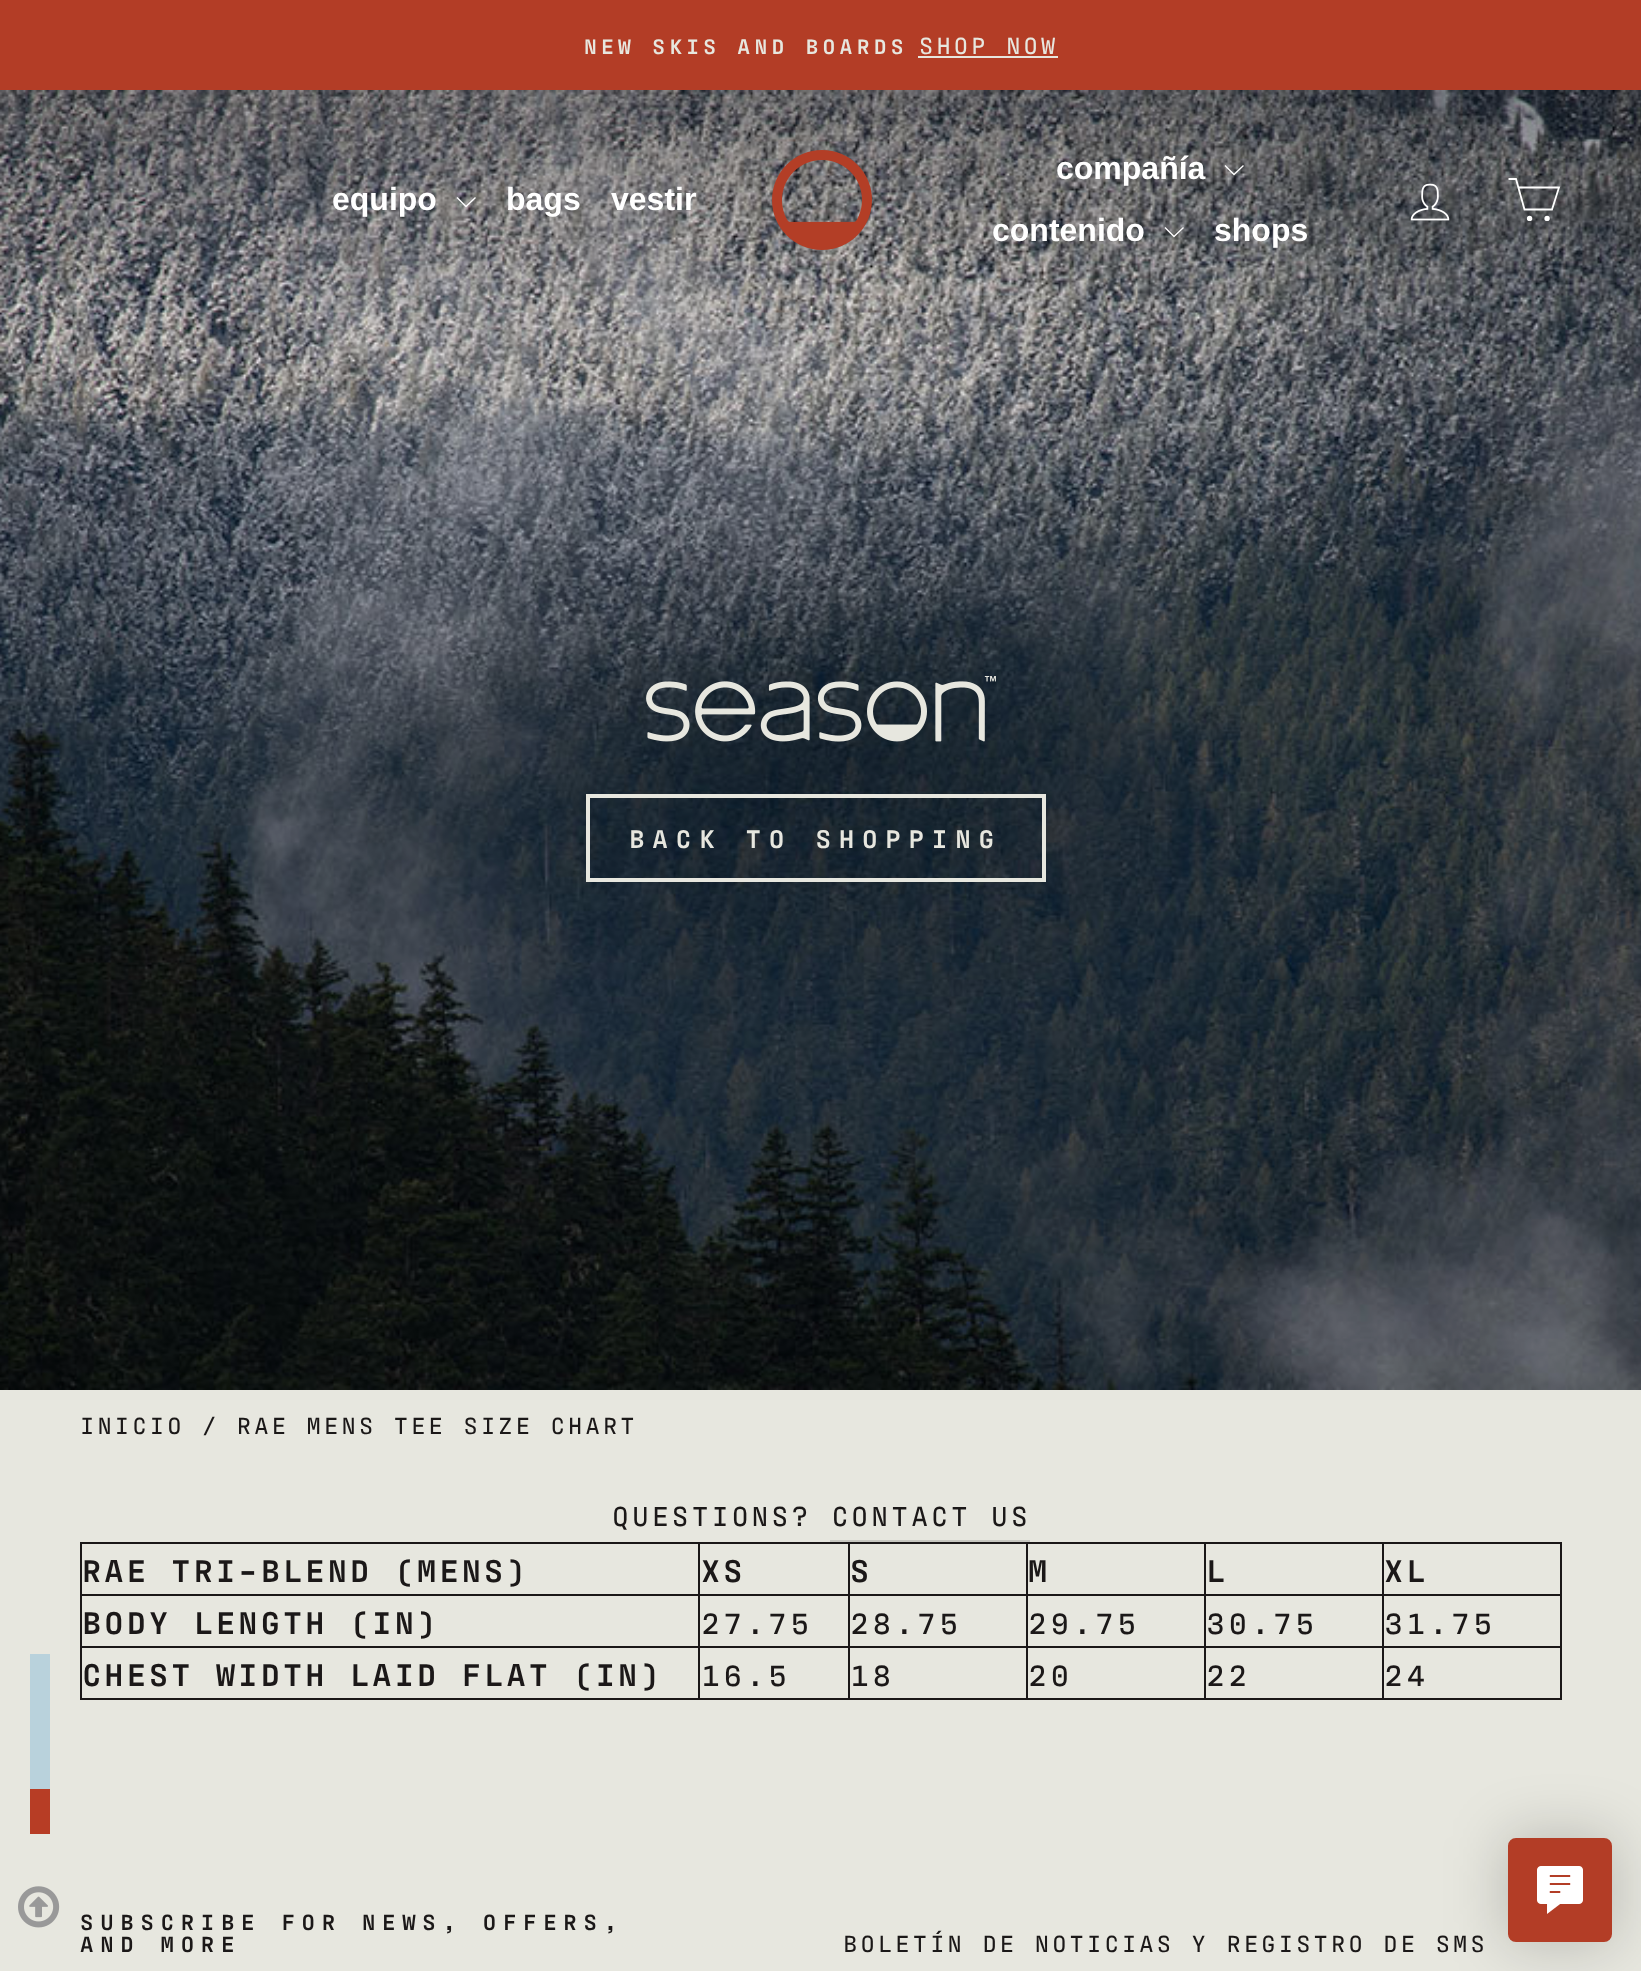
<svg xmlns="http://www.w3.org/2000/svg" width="1641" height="1971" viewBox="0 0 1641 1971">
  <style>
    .t1 { font: 600 21.4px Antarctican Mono; letter-spacing: 4.25px; fill: #e7e7df; }
    .t2 { font: 500 23.8px Antarctican Mono; letter-spacing: 3.2px; fill: #e7e7df; }
    .t3 { font: bold 32px Liberation Sans; fill: #fff; }
    .t4 { font: 600 26px Antarctican Mono; letter-spacing: 7.75px; fill: #e7e7df; }
    .t5 { font: 500 23.8px Antarctican Mono; letter-spacing: 3.2px; fill: #1b1818; }
    .t6 { font: 500 28px Antarctican Mono; letter-spacing: 3.2px; fill: #1b1818; }
    .t7 { font: 600 32px Antarctican Mono; letter-spacing: 3.2px; fill: #1b1818; }
    .t8 { font: 500 32px Antarctican Mono; letter-spacing: 3.2px; fill: #1b1818; }
    .t9 { font: 600 22.4px Antarctican Mono; letter-spacing: 6.75px; fill: #1b1818; }
  </style>
  <rect width="100%" height="100%" fill="#e7e7df"/>
  <rect x="30" y="1654" width="20" height="135" fill="#b9d2dc"/>
  <rect x="30" y="1789" width="20" height="45" fill="#b73d25"/>
  <image x="18" y="1886" width="42" height="42" href="images/1.png"/>
  <rect x="0" y="0" width="1641" height="90" fill="#b33d26"/>
  <text x="584" y="54" class="t1">NEW SKIS AND BOARDS</text>
  <text x="919" y="54" class="t2">SHOP NOW</text>
  <rect x="918" y="56" width="140" height="2" fill="#e7e7df"/>
  <image x="0" y="90" width="1641" height="1300" href="images/4.png"/>
  <text x="332" y="210" class="t3">equipo</text>
  <path d="M457 197.5L466 206.5L475.5 197.5" fill="none" stroke="#fff" stroke-width="1.4"/>
  <text x="506" y="210" class="t3">bags</text>
  <text x="611" y="210" class="t3">vestir</text>
  <image x="772" y="150" width="100" height="100" href="images/2.png"/>
  <text x="1056" y="179" class="t3">compañía</text>
  <path d="M1225 165.5L1234 174.5L1243.5 165.5" fill="none" stroke="#fff" stroke-width="1.4"/>
  <text x="992" y="241" class="t3">contenido</text>
  <path d="M1165 227.5L1174 236.5L1183.5 227.5" fill="none" stroke="#fff" stroke-width="1.4"/>
  <text x="1214" y="241" class="t3">shops</text>
  <image x="1410" y="183" width="40" height="38" href="images/3.png"/>
  <path d="M1518 187.5H1559L1552 209.5H1524.5L1516 179H1508.5" fill="none" stroke="#fff" stroke-width="1.8"/>
  <circle cx="1529.6" cy="218.4" r="1.8" fill="#fff" stroke="#fff" stroke-width="1.8"/>
  <circle cx="1547.1" cy="218.4" r="1.8" fill="#fff" stroke="#fff" stroke-width="1.8"/>
  <image x="646" y="676" width="350" height="66" href="images/5.png"/>
  <rect x="588" y="796" width="456" height="84" fill="none" stroke="#e7e7df" stroke-width="4"/>
  <text x="629" y="848" class="t4">BACK TO SHOPPING</text>
  <text x="80" y="1434" class="t5">INICIO / RAE MENS TEE SIZE CHART</text>
  <text x="612" y="1526" class="t6">QUESTIONS? CONTACT US</text>
  <rect x="830" y="1540" width="200" height="2" fill="#c8c8c1"/>
  <rect x="80" y="1542" width="1482" height="158" fill="#1b1818"/>
  <rect x="82" y="1544" width="616" height="50" fill="#e7e7df"/>
  <text x="82" y="1582" class="t7">RAE TRI-BLEND (MENS)</text>
  <rect x="700" y="1544" width="148" height="50" fill="#e7e7df"/>
  <text x="701" y="1582" class="t7">XS</text>
  <rect x="850" y="1544" width="176" height="50" fill="#e7e7df"/>
  <text x="850" y="1582" class="t7">S</text>
  <rect x="1028" y="1544" width="176" height="50" fill="#e7e7df"/>
  <text x="1028" y="1582" class="t7">M</text>
  <rect x="1206" y="1544" width="176" height="50" fill="#e7e7df"/>
  <text x="1206" y="1582" class="t7">L</text>
  <rect x="1384" y="1544" width="176" height="50" fill="#e7e7df"/>
  <text x="1384" y="1582" class="t7">XL</text>
  <rect x="82" y="1596" width="616" height="50" fill="#e7e7df"/>
  <text x="82" y="1634" class="t7">BODY LENGTH (IN)</text>
  <rect x="700" y="1596" width="148" height="50" fill="#e7e7df"/>
  <text x="701" y="1634" class="t8">27.75</text>
  <rect x="850" y="1596" width="176" height="50" fill="#e7e7df"/>
  <text x="850" y="1634" class="t8">28.75</text>
  <rect x="1028" y="1596" width="176" height="50" fill="#e7e7df"/>
  <text x="1028" y="1634" class="t8">29.75</text>
  <rect x="1206" y="1596" width="176" height="50" fill="#e7e7df"/>
  <text x="1206" y="1634" class="t8">30.75</text>
  <rect x="1384" y="1596" width="176" height="50" fill="#e7e7df"/>
  <text x="1384" y="1634" class="t8">31.75</text>
  <rect x="82" y="1648" width="616" height="50" fill="#e7e7df"/>
  <text x="82" y="1686" class="t7">CHEST WIDTH LAID FLAT (IN)</text>
  <rect x="700" y="1648" width="148" height="50" fill="#e7e7df"/>
  <text x="701" y="1686" class="t8">16.5</text>
  <rect x="850" y="1648" width="176" height="50" fill="#e7e7df"/>
  <text x="850" y="1686" class="t8">18</text>
  <rect x="1028" y="1648" width="176" height="50" fill="#e7e7df"/>
  <text x="1028" y="1686" class="t8">20</text>
  <rect x="1206" y="1648" width="176" height="50" fill="#e7e7df"/>
  <text x="1206" y="1686" class="t8">22</text>
  <rect x="1384" y="1648" width="176" height="50" fill="#e7e7df"/>
  <text x="1384" y="1686" class="t8">24</text>
  <text x="80" y="1930" class="t9">SUBSCRIBE FOR NEWS, OFFERS,</text>
  <text x="80" y="1952" class="t9">AND MORE</text>
  <text x="843" y="1952" class="t5">BOLETÍN DE NOTICIAS Y REGISTRO DE SMS</text>
  <rect x="1506" y="1836" width="108" height="108" rx="10" fill="#00000033" filter="blur(30px)"/>
  <rect x="1509" y="1839" width="102" height="102" rx="7" fill="#b33d26" stroke="#b33d26" stroke-width="2"/>
  <image x="1537" y="1866" width="46" height="48" href="images/6.png"/>
</svg>
